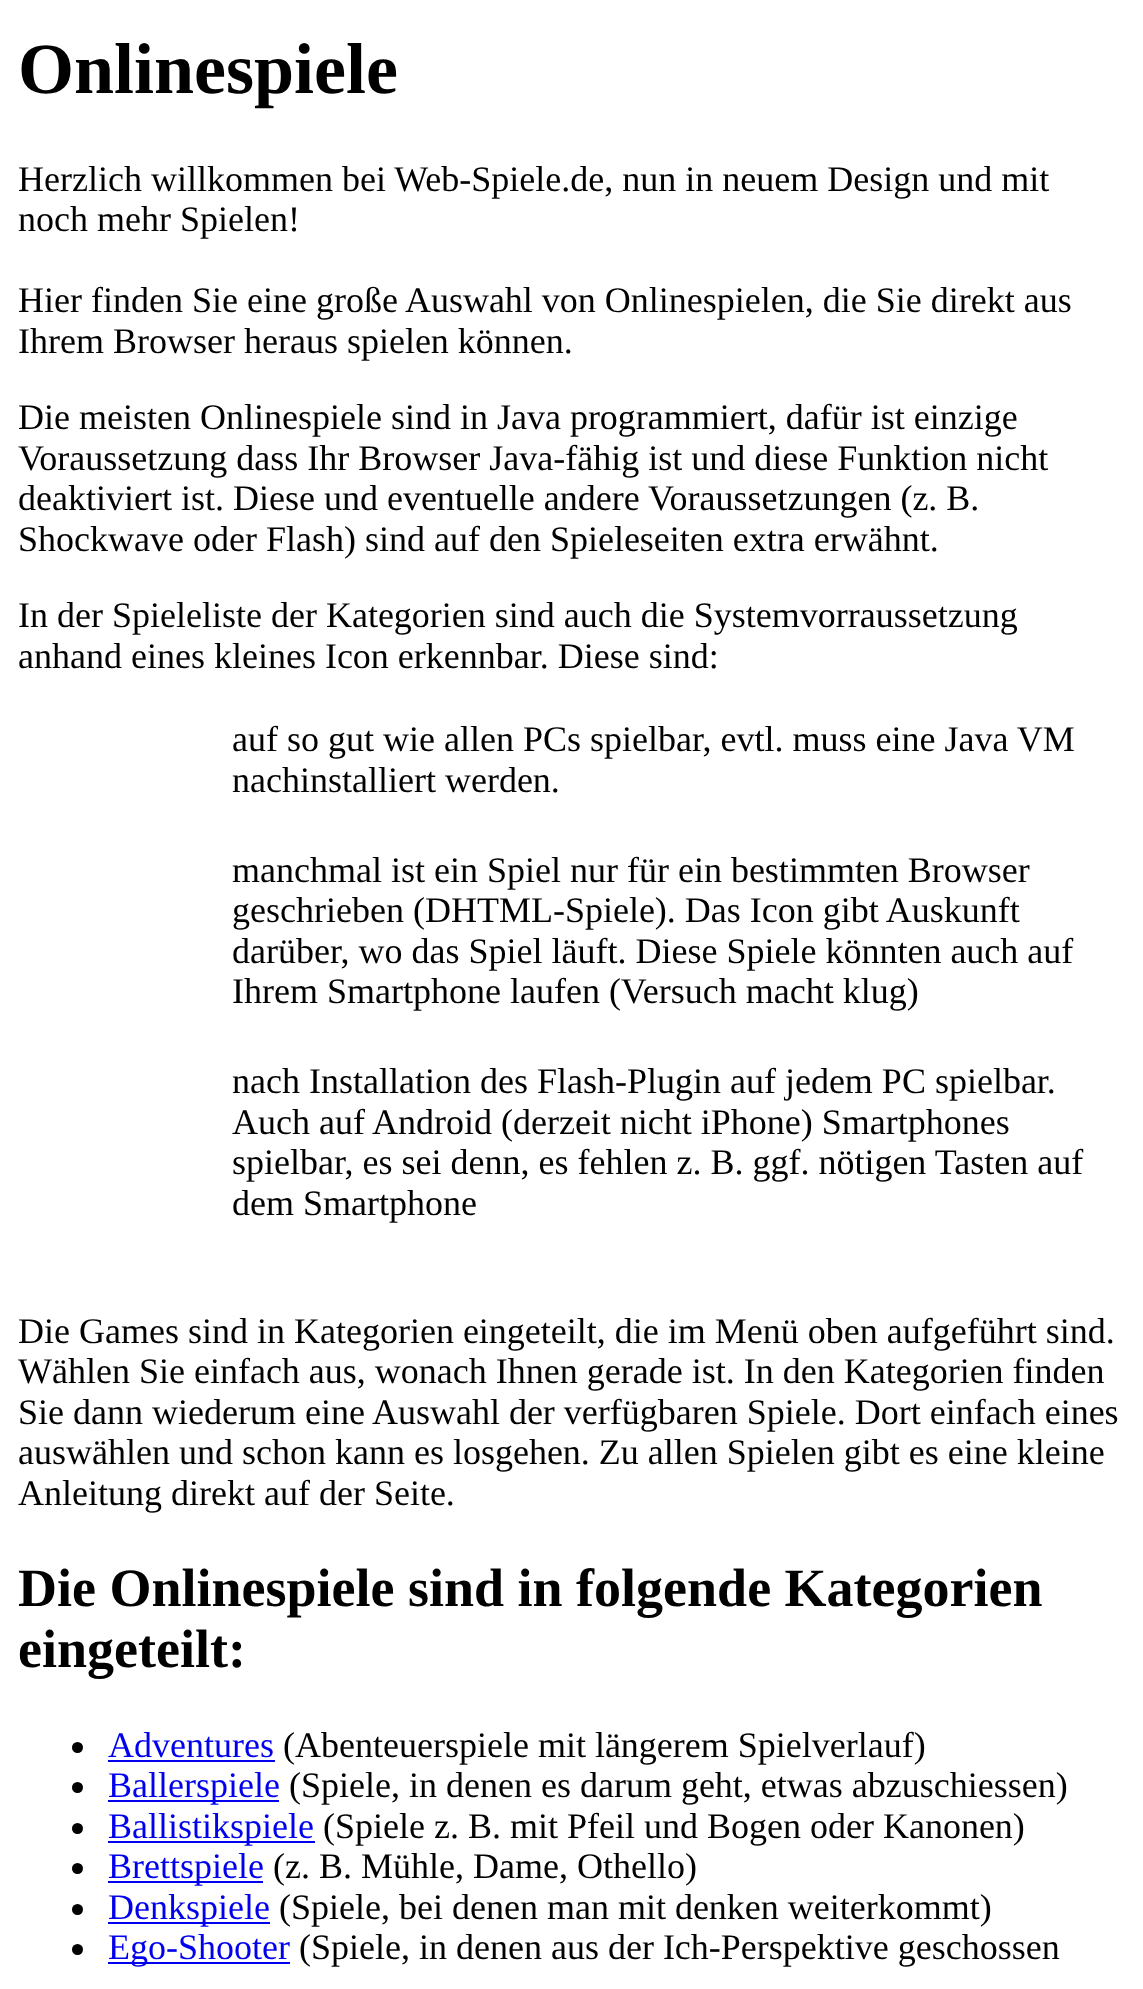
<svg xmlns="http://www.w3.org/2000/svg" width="1143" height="1989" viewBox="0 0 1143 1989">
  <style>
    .t1 { font: bold 72px Liberation Serif; fill: #000; }
    .t2 { font: 36px Liberation Serif; fill: #000; }
    .t3 { font: bold 54px Liberation Serif; fill: #000; }
    .t4 { font: 36px Liberation Serif; fill: #00e; }
  </style>
  <rect width="100%" height="100%" fill="#fff"/>
  <text x="18" y="93" class="t1">Onlinespiele</text>
  <text x="18" y="191" class="t2">Herzlich willkommen bei Web-Spiele.de, nun in neuem Design und mit</text>
  <text x="18" y="231" class="t2">noch mehr Spielen!</text>
  <text x="18" y="312" class="t2">Hier finden Sie eine große Auswahl von Onlinespielen, die Sie direkt aus</text>
  <text x="18" y="353" class="t2">Ihrem Browser heraus spielen können.</text>
  <text x="18" y="429" class="t2">Die meisten Onlinespiele sind in Java programmiert, dafür ist einzige</text>
  <text x="18" y="470" class="t2">Voraussetzung dass Ihr Browser Java-fähig ist und diese Funktion nicht</text>
  <text x="18" y="510" class="t2">deaktiviert ist. Diese und eventuelle andere Voraussetzungen (z. B.</text>
  <text x="18" y="551" class="t2">Shockwave oder Flash) sind auf den Spieleseiten extra erwähnt.</text>
  <text x="18" y="627" class="t2">In der Spieleliste der Kategorien sind auch die Systemvorraussetzung</text>
  <text x="18" y="668" class="t2">anhand eines kleines Icon erkennbar. Diese sind:</text>
  <text x="232" y="751" class="t2">auf so gut wie allen PCs spielbar, evtl. muss eine Java VM</text>
  <text x="232" y="792" class="t2">nachinstalliert werden.</text>
  <text x="232" y="882" class="t2">manchmal ist ein Spiel nur für ein bestimmten Browser</text>
  <text x="232" y="922" class="t2">geschrieben (DHTML-Spiele). Das Icon gibt Auskunft</text>
  <text x="232" y="963" class="t2">darüber, wo das Spiel läuft. Diese Spiele könnten auch auf</text>
  <text x="232" y="1003" class="t2">Ihrem Smartphone laufen (Versuch macht klug)</text>
  <text x="232" y="1093" class="t2">nach Installation des Flash-Plugin auf jedem PC spielbar.</text>
  <text x="232" y="1134" class="t2">Auch auf Android (derzeit nicht iPhone) Smartphones</text>
  <text x="232" y="1174" class="t2">spielbar, es sei denn, es fehlen z. B. ggf. nötigen Tasten auf</text>
  <text x="232" y="1215" class="t2">dem Smartphone</text>
  <text x="18" y="1343" class="t2">Die Games sind in Kategorien eingeteilt, die im Menü oben aufgeführt sind.</text>
  <text x="18" y="1383" class="t2">Wählen Sie einfach aus, wonach Ihnen gerade ist. In den Kategorien finden</text>
  <text x="18" y="1424" class="t2">Sie dann wiederum eine Auswahl der verfügbaren Spiele. Dort einfach eines</text>
  <text x="18" y="1464" class="t2">auswählen und schon kann es losgehen. Zu allen Spielen gibt es eine kleine</text>
  <text x="18" y="1505" class="t2">Anleitung direkt auf der Seite.</text>
  <text x="18" y="1606" class="t3">Die Onlinespiele sind in folgende Kategorien</text>
  <text x="18" y="1667" class="t3">eingeteilt:</text>
  <circle cx="77.5" cy="1747.5" r="5.5" fill="#000"/>
  <text x="108" y="1757" class="t4">Adventures</text>
  <rect x="108" y="1760" width="167" height="2" fill="#00e"/>
  <text x="283" y="1757" class="t2">(Abenteuerspiele mit längerem Spielverlauf)</text>
  <circle cx="77.5" cy="1787.5" r="5.5" fill="#000"/>
  <rect x="108" y="1800" width="171" height="2" fill="#00e"/>
  <text x="108" y="1797" class="t4">Ballerspiele</text>
  <text x="289" y="1797" class="t2">(Spiele, in denen es darum geht, etwas abzuschiessen)</text>
  <circle cx="77.5" cy="1828.5" r="5.5" fill="#000"/>
  <rect x="108" y="1841" width="207" height="2" fill="#00e"/>
  <text x="108" y="1838" class="t4">Ballistikspiele</text>
  <text x="323" y="1838" class="t2">(Spiele z. B. mit Pfeil und Bogen oder Kanonen)</text>
  <circle cx="77.5" cy="1868.5" r="5.5" fill="#000"/>
  <rect x="108" y="1881" width="155" height="2" fill="#00e"/>
  <text x="108" y="1878" class="t4">Brettspiele</text>
  <text x="273" y="1878" class="t2">(z. B. Mühle, Dame, Othello)</text>
  <circle cx="77.5" cy="1909.5" r="5.5" fill="#000"/>
  <rect x="108" y="1922" width="162" height="2" fill="#00e"/>
  <text x="108" y="1919" class="t4">Denkspiele</text>
  <text x="279" y="1919" class="t2">(Spiele, bei denen man mit denken weiterkommt)</text>
  <circle cx="77.5" cy="1949.5" r="5.5" fill="#000"/>
  <rect x="108" y="1962" width="182" height="2" fill="#00e"/>
  <text x="108" y="1959" class="t4">Ego-Shooter</text>
  <text x="299" y="1959" class="t2">(Spiele, in denen aus der Ich-Perspektive geschossen</text>
</svg>
